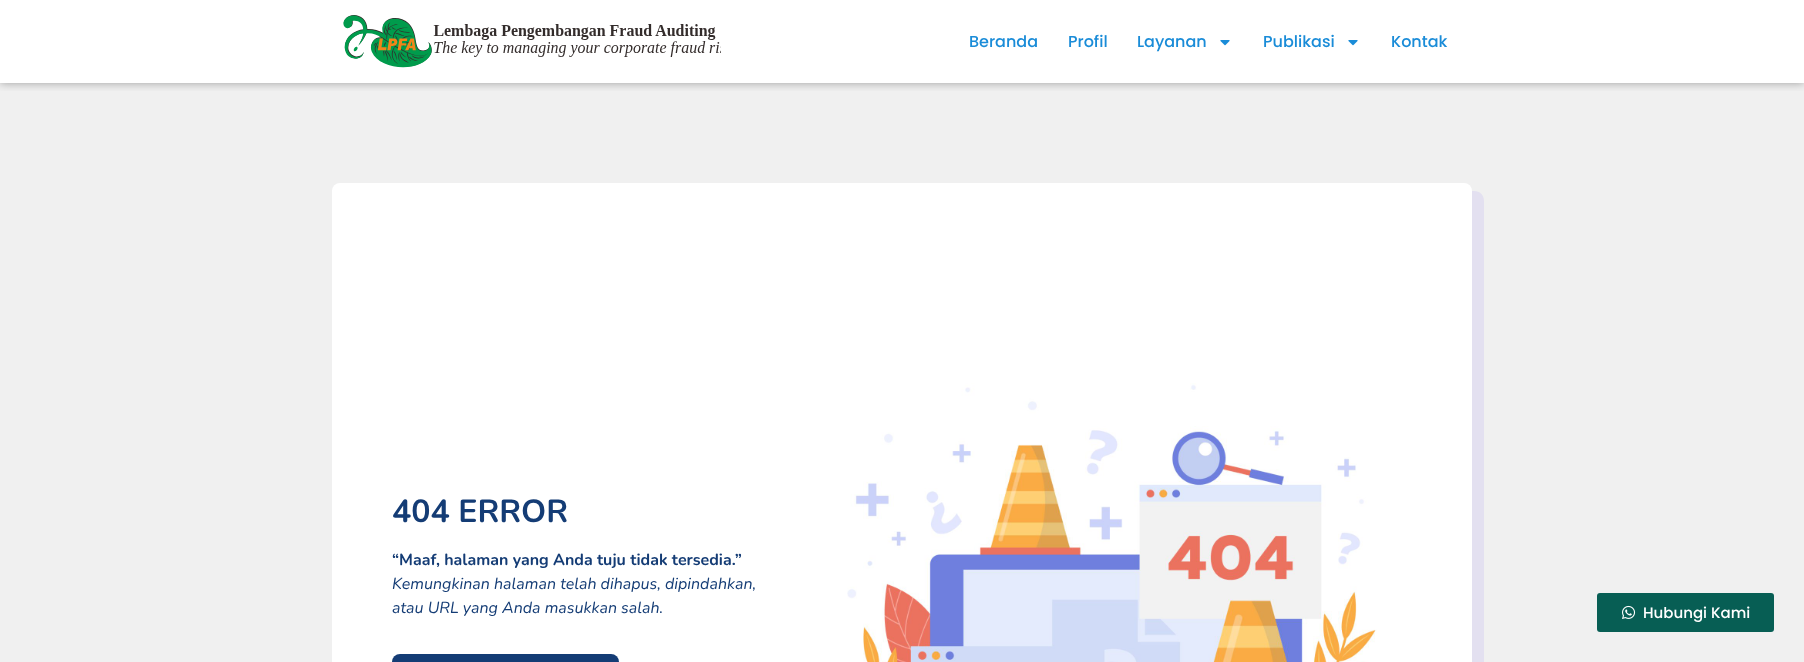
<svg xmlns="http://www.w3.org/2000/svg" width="1804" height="662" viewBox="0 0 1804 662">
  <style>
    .t1 { font: 500 16px Poppins; fill: #1a8cd8; }
    .t2 { font: bold 32px Nunito; fill: #143c75; }
    .t3 { font: bold 16px Nunito; fill: #143c75; }
    .t4 { font: italic 16px Nunito; fill: #143c75; }
    .t5 { font: 500 15px Poppins; fill: #fff; }
  </style>
  <defs>
    <clipPath id="clip1"><rect x="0" y="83" width="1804" height="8"/></clipPath>
  </defs>
  <rect width="100%" height="100%" fill="#fff"/>
  <rect x="0" y="83" width="1804" height="579" fill="#f0f0f0"/>
  <g clip-path="url(#clip1)">
    <rect x="0" y="0" width="1804" height="83" fill="#00000059" filter="blur(5px)"/>
  </g>
  <image x="343" y="15" width="378" height="53" href="images/1.png"/>
  <text x="969" y="47" class="t1">Beranda</text>
  <text x="1068" y="47" class="t1">Profil</text>
  <text x="1137" y="47" class="t1">Layanan</text>
  <image x="1220" y="40" width="10" height="6" href="images/2.png"/>
  <text x="1263" y="47" class="t1">Publikasi</text>
  <image x="1348" y="40" width="10" height="6" href="images/2.png"/>
  <text x="1391" y="47" class="t1">Kontak</text>
  <path d="M340 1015V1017C340 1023 344 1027 350 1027H1474C1480 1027 1484 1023 1484 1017V201C1484 195 1480 191 1474 191H1472V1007C1472 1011 1468 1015 1464 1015Z" fill="#e3e0f0"/>
  <rect x="332" y="183" width="1140" height="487" rx="8" fill="#fff"/>
  <text x="392" y="522" class="t2">404 ERROR</text>
  <text x="392" y="565" class="t3">“Maaf, halaman yang Anda tuju tidak tersedia.”</text>
  <text x="392" y="589" class="t4">Kemungkinan halaman telah dihapus, dipindahkan,</text>
  <text x="392" y="613" class="t4">atau URL yang Anda masukkan salah.</text>
  <rect x="392" y="654" width="227" height="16" rx="8" fill="#143c75"/>
  <image x="847" y="383" width="530" height="279" href="images/3.png"/>
  <rect x="1597" y="593" width="177" height="39" rx="3" fill="#075e54"/>
  <image x="1622" y="605" width="14" height="14" href="images/4.png"/>
  <text x="1643" y="618" class="t5">Hubungi Kami</text>
</svg>
